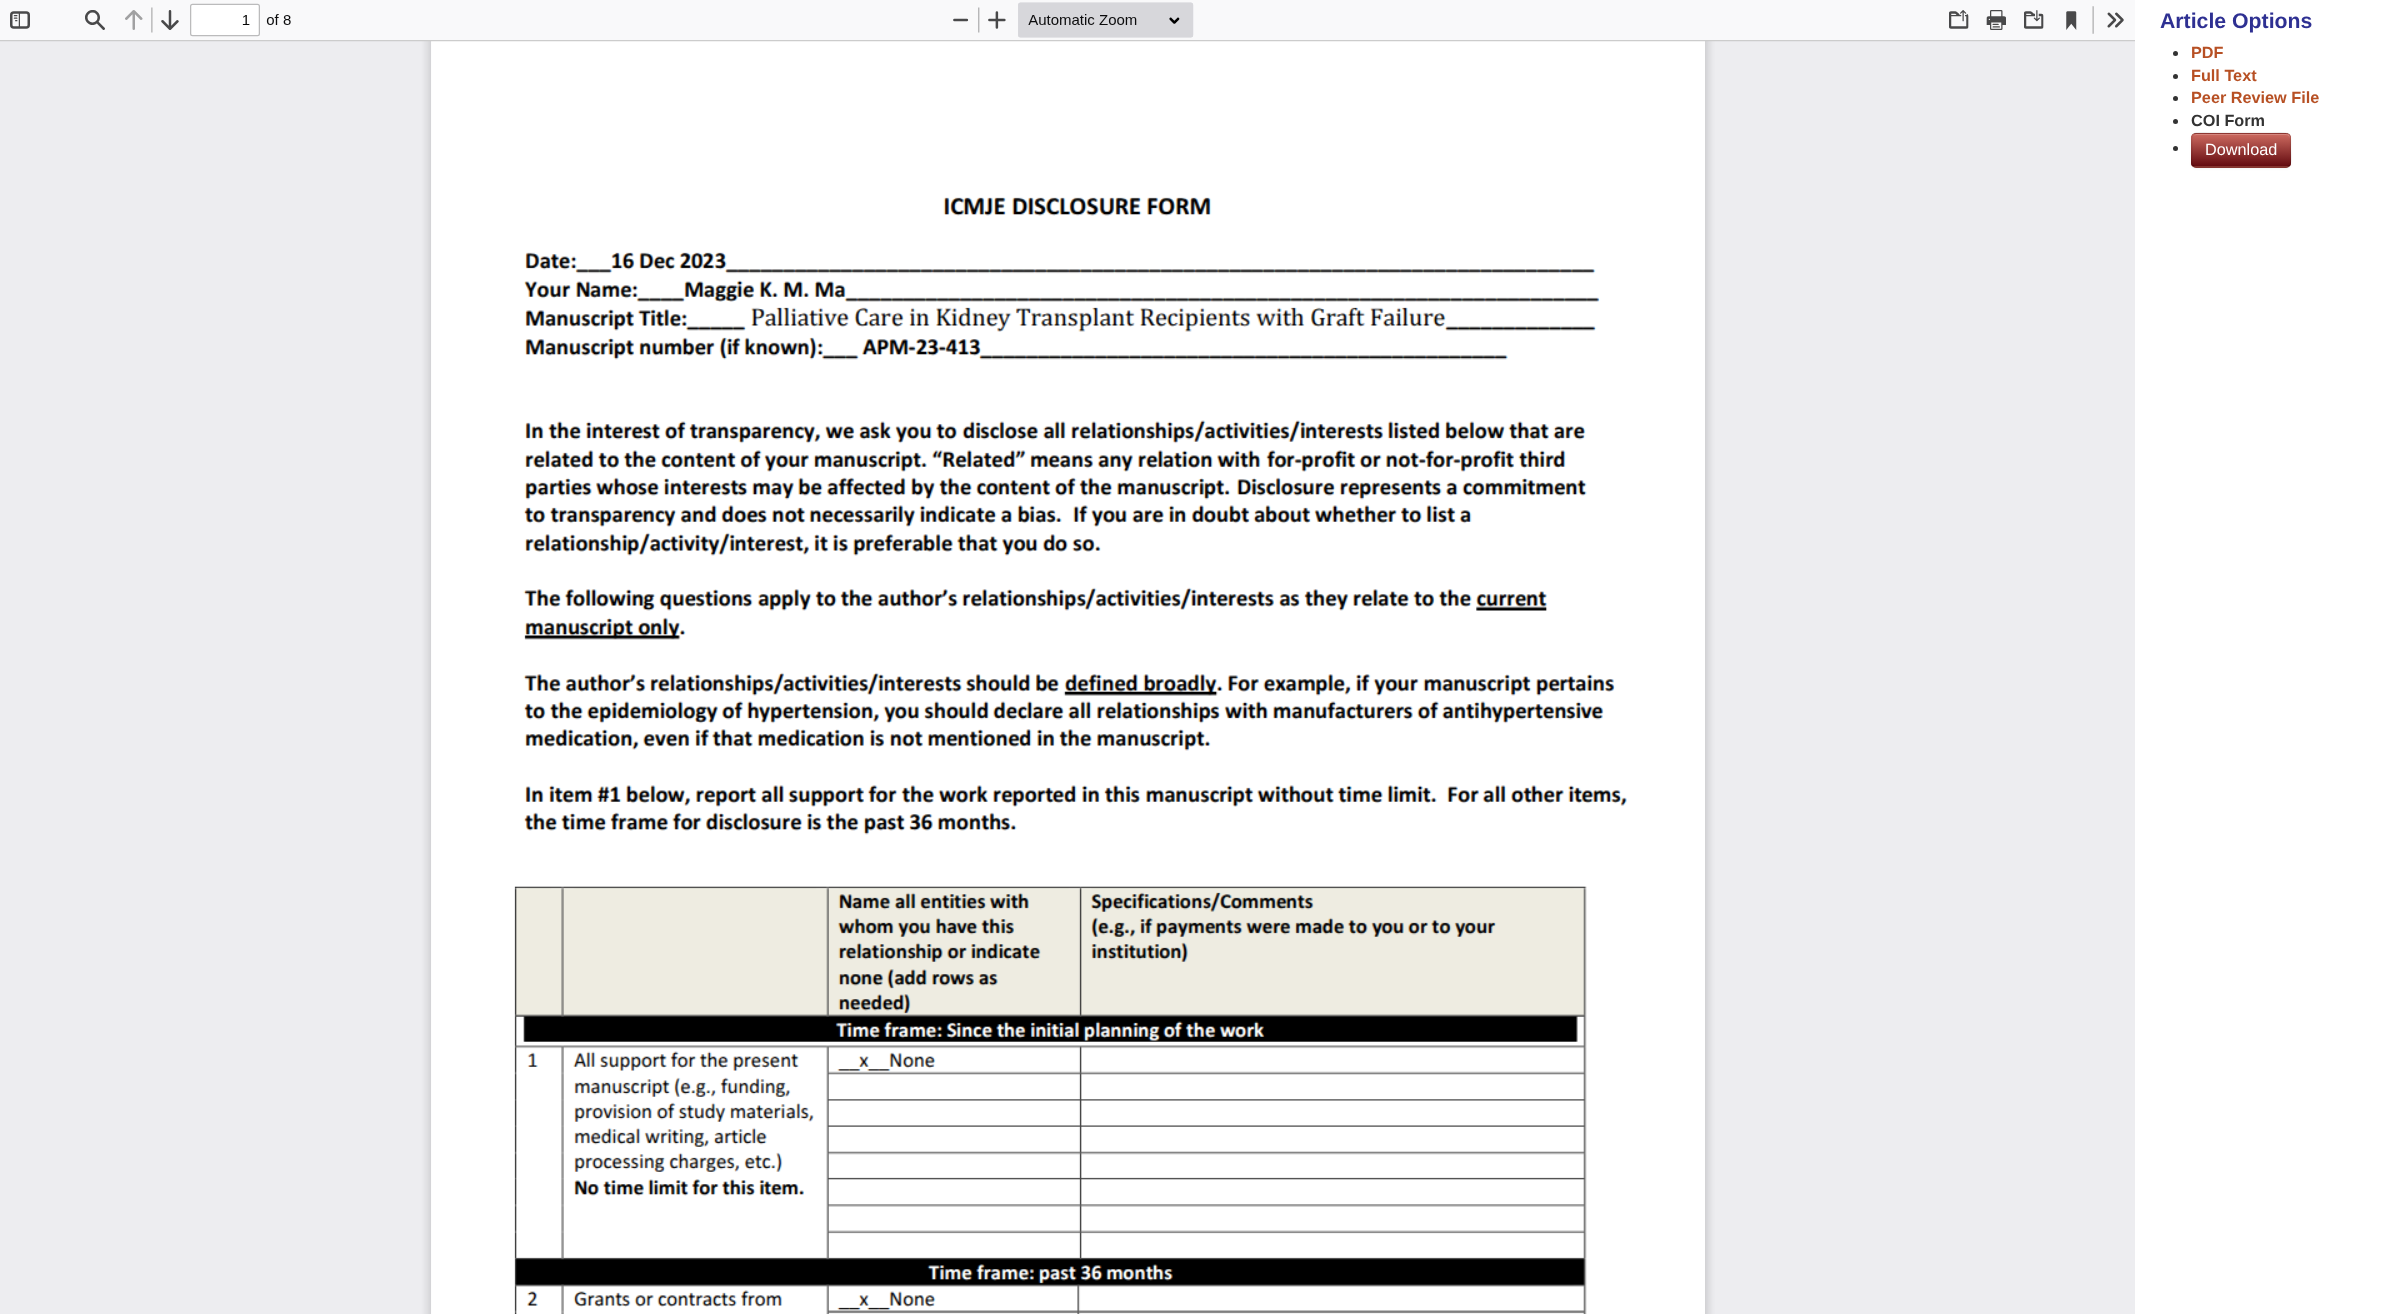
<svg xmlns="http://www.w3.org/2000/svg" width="2385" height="1314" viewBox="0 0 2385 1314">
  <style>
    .t1 { font: bold 21.25px Liberation Sans; fill: #2e3092; }
    .t2 { font: bold 16.25px Liberation Sans; fill: #b75024; }
    .t3 { font: bold 16.25px Liberation Sans; fill: #333; }
    .t4 { font: 16.25px Liberation Sans; fill: #fff; }
  </style>
  <defs>
    <clipPath id="clip1"><rect x="2191" y="133" width="100" height="35" rx="5"/></clipPath>
    <linearGradient id="g1" gradientUnits="userSpaceOnUse" x1="2241" y1="134" x2="2241" y2="166"><stop offset="0" stop-color="#cc6a60"/><stop offset="1" stop-color="#640b10"/></linearGradient>
  </defs>
  <rect width="100%" height="100%" fill="#fff"/>
  <image x="0" y="0" width="2135" height="1314" href="images/1.png"/>
  <text x="2160" y="28" class="t1">Article Options</text>
  <circle cx="2175.5" cy="53.5" r="2.5" fill="#333"/>
  <text x="2191" y="58" class="t2">PDF</text>
  <circle cx="2175.5" cy="76.5" r="2.5" fill="#333"/>
  <text x="2191" y="81" class="t2">Full Text</text>
  <circle cx="2175.5" cy="98.5" r="2.5" fill="#333"/>
  <text x="2191" y="103" class="t2">Peer Review File</text>
  <circle cx="2175.5" cy="121.5" r="2.5" fill="#333"/>
  <text x="2191" y="126" class="t3">COI Form</text>
  <circle cx="2175.5" cy="148.5" r="2.5" fill="#333"/>
  <rect x="2191" y="134" width="100" height="35" rx="5" fill="#0000000d" filter="blur(1px)"/>
  <rect x="2191" y="133" width="100" height="35" rx="5" fill="#973c36"/>
  <g clip-path="url(#clip1)">
    <rect x="2191" y="134" width="100" height="32" fill="url(#g1)"/>
  </g>
  <path d="M2196 135H2286C2288 135 2290 137 2290 139C2290 138 2290 136 2289 135L2286 134H2196L2194 136Z" fill="#ffffff33"/>
  <path d="M2289.5 165.5C2288.5 166.5 2287.5 167 2286 167H2196C2195 167 2194 166.5 2193 165.5" fill="none" stroke="#00000040" stroke-width="1.2"/>
  <path d="M2193 165.5C2190.5 163 2192 157.5 2192 154C2192 130.5 2187.5 133 2211 133H2271C2293 133 2290.5 130 2290.5 150C2290.5 153 2292 163 2289.5 165.5" fill="none" stroke="#0000001a" stroke-width="1.2"/>
  <text x="2205" y="155" class="t4">Download</text>
</svg>
